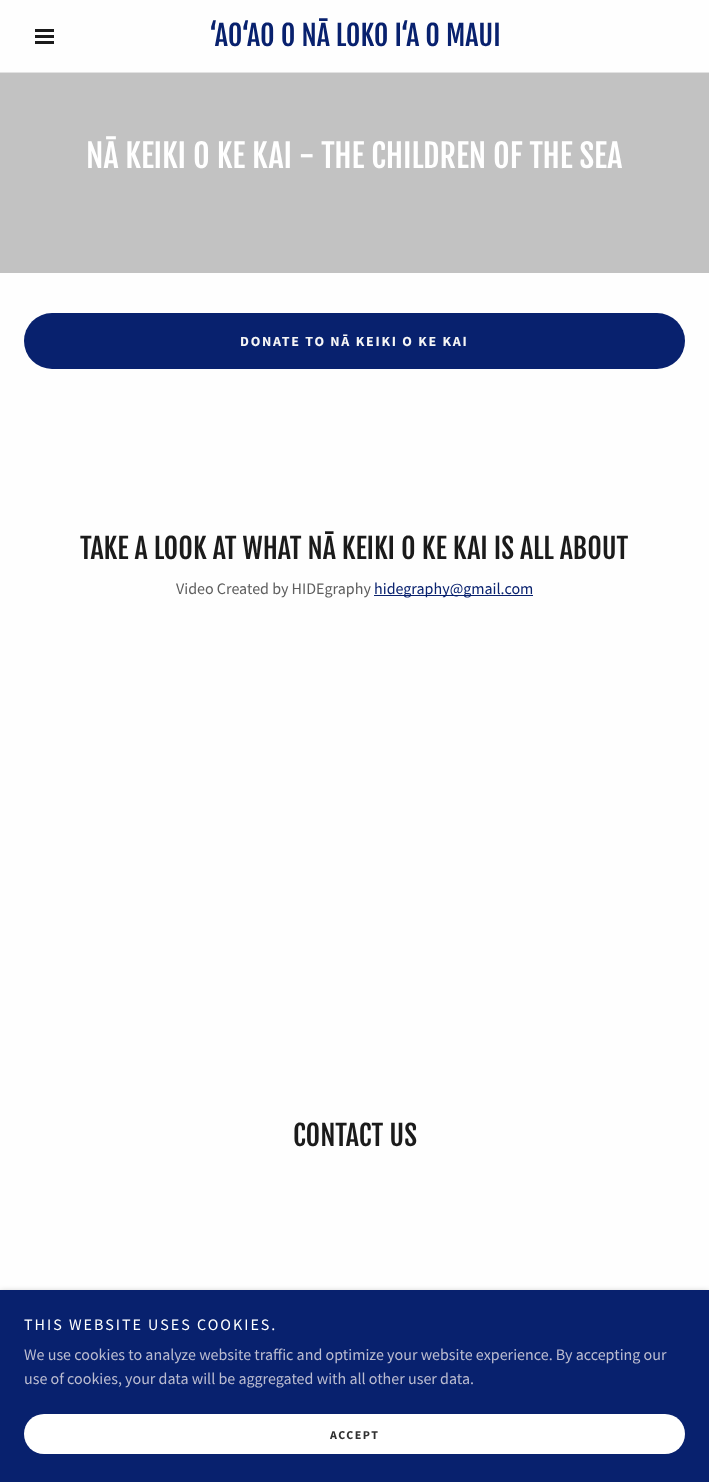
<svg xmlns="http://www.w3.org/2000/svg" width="709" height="1482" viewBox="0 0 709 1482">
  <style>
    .t1 { font: 28px Fjalla One; fill: #08216e; }
    .t2 { font: 32px Fjalla One; fill: #fff; }
    .t3 { font: bold 14px Source Sans Pro; letter-spacing: 1.75px; fill: #f6f6f6; }
    .t4 { font: 28px Fjalla One; fill: #1b1b1b; }
    .t5 { font: 16px Source Sans Pro; fill: #5e5e5e; }
    .t6 { font: 16px Source Sans Pro; fill: #08216e; }
    .t7 { font: 16px Source Sans Pro; letter-spacing: 2px; fill: #fff; }
    .t8 { font: 16px Source Sans Pro; fill: #bbbcd0; }
    .t9 { font: bold 12px Source Sans Pro; letter-spacing: 1.5px; fill: #303030; }
  </style>
  <rect width="100%" height="100%" fill="#fefefe"/>
  <rect x="35" y="29" width="19" height="3" fill="#1b1b1b"/>
  <rect x="35" y="35" width="19" height="3" fill="#1b1b1b"/>
  <rect x="35" y="41" width="19" height="3" fill="#1b1b1b"/>
  <text x="209" y="46" class="t1">‘AO‘AO O NĀ LOKO I‘A O MAUI</text>
  <rect x="0" y="72" width="709" height="1" fill="#e2e2e2"/>
  <rect x="0" y="73" width="709" height="200" fill="#c2c2c2"/>
  <text x="86" y="168" class="t2">NĀ KEIKI O KE KAI - THE CHILDREN OF THE SEA</text>
  <rect x="24" y="313" width="661" height="56" rx="28" fill="#08216e"/>
  <text x="240" y="346" class="t3">DONATE TO NĀ KEIKI O KE KAI</text>
  <text x="80" y="559" class="t4">TAKE A LOOK AT WHAT NĀ KEIKI O KE KAI IS ALL ABOUT</text>
  <text x="176" y="594" class="t5">Video Created by HIDEgraphy</text>
  <rect x="374" y="595" width="159" height="1" fill="#08216e"/>
  <text x="374" y="594" class="t6">hidegraphy@gmail.com</text>
  <text x="293" y="1146" class="t4">CONTACT US</text>
  <rect x="0" y="1292" width="709" height="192" fill="#0000004d" filter="blur(3px)"/>
  <rect x="0" y="1290" width="709" height="192" fill="#08216e"/>
  <text x="24" y="1330" class="t7">THIS WEBSITE USES COOKIES.</text>
  <text x="24" y="1360" class="t8">We use cookies to analyze website traffic and optimize your website experience. By accepting our</text>
  <text x="24" y="1384" class="t8">use of cookies, your data will be aggregated with all other user data.</text>
  <rect x="24" y="1414" width="661" height="40" rx="20" fill="#fff"/>
  <text x="330" y="1439" class="t9">ACCEPT</text>
</svg>
